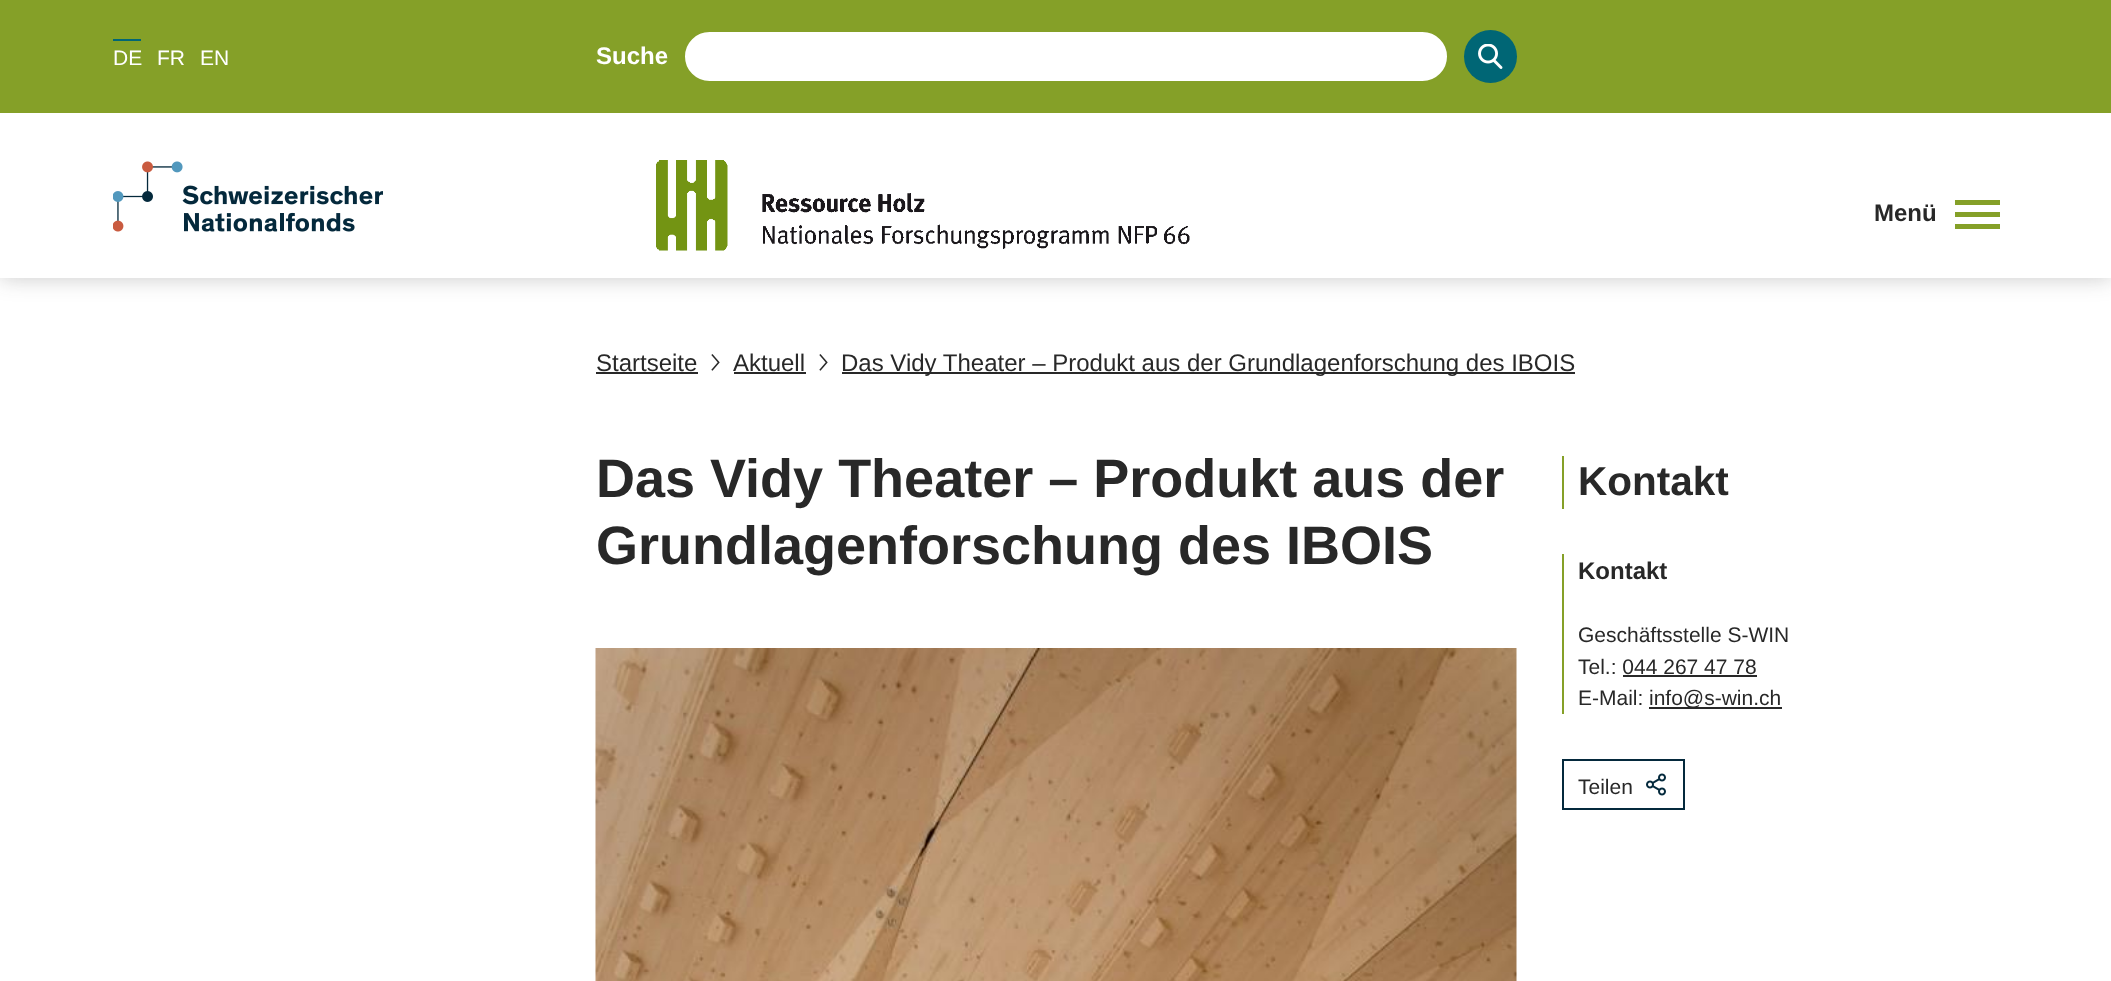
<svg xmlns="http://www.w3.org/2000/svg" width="2111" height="981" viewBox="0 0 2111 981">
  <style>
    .t1 { font: 21px Liberation Sans; fill: #fff; }
    .t2 { font: bold 24px Liberation Sans; fill: #fff; }
    .t3 { font: bold 24px Liberation Sans; fill: #282828; }
    .t4 { font: 24px Liberation Sans; fill: #282828; }
    .t5 { font: bold 54px Liberation Sans; fill: #282828; }
    .t6 { font: bold 40.5px Liberation Sans; fill: #282828; }
    .t7 { font: 21px Liberation Sans; fill: #282828; }
  </style>
  <rect width="100%" height="100%" fill="#fff"/>
  <rect x="0" y="0" width="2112" height="278" fill="#28282840" filter="blur(11px)"/>
  <rect x="0" y="0" width="2111" height="113" fill="#85a028"/>
  <rect x="113" y="39" width="28" height="2" fill="#006675"/>
  <text x="113" y="65" class="t1">DE</text>
  <text x="157" y="65" class="t1">FR</text>
  <text x="200" y="65" class="t1">EN</text>
  <text x="596" y="64" class="t2">Suche</text>
  <rect x="684" y="31" width="764" height="51" rx="25.5" fill="#fff" stroke="#85a028" stroke-width="2"/>
  <circle cx="1490.5" cy="56.5" r="26.5" fill="#006675"/>
  <image x="1478" y="44" width="25" height="25" href="images/1.png"/>
  <rect x="0" y="113" width="2111" height="165" fill="#fff"/>
  <image x="113" y="161" width="270" height="71" href="images/2.png"/>
  <image x="656" y="160" width="534" height="91" href="images/3.png"/>
  <text x="1874" y="221" class="t3">Menü</text>
  <rect x="1955" y="212" width="45" height="5" fill="#85a028"/>
  <rect x="1955" y="200" width="45" height="5" fill="#85a028"/>
  <rect x="1955" y="224" width="45" height="5" fill="#85a028"/>
  <text x="596" y="371" class="t4">Startseite</text>
  <rect x="596" y="372" width="102" height="2" fill="#282828"/>
  <image x="711" y="354" width="9" height="17" href="images/4.png"/>
  <text x="733" y="371" class="t4">Aktuell</text>
  <rect x="734" y="372" width="72" height="2" fill="#282828"/>
  <image x="819" y="354" width="9" height="17" href="images/4.png"/>
  <rect x="842" y="372" width="733" height="2" fill="#282828"/>
  <text x="841" y="371" class="t4">Das Vidy Theater – Produkt aus der Grundlagenforschung des IBOIS</text>
  <text x="596" y="497" class="t5">Das Vidy Theater – Produkt aus der</text>
  <text x="596" y="564" class="t5">Grundlagenforschung des IBOIS</text>
  <image x="595" y="648" width="922" height="333" href="images/5.png"/>
  <rect x="1562" y="456" width="2" height="53" fill="#85a028"/>
  <text x="1578" y="495" class="t6">Kontakt</text>
  <rect x="1562" y="554" width="2" height="160" fill="#85a028"/>
  <text x="1578" y="579" class="t3">Kontakt</text>
  <text x="1578" y="642" class="t7">Geschäftsstelle S-WIN</text>
  <text x="1578" y="674" class="t7">Tel.: 044 267 47 78</text>
  <rect x="1623" y="675" width="134" height="2" fill="#282828"/>
  <text x="1578" y="705" class="t7">E-Mail:</text>
  <rect x="1649" y="707" width="133" height="2" fill="#282828"/>
  <text x="1649" y="705" class="t7">info@s-win.ch</text>
  <rect x="1563" y="760" width="121" height="49" fill="none" stroke="#04293c" stroke-width="2"/>
  <text x="1578" y="794" class="t7">Teilen</text>
  <image x="1646" y="773" width="20" height="23" href="images/6.png"/>
</svg>
